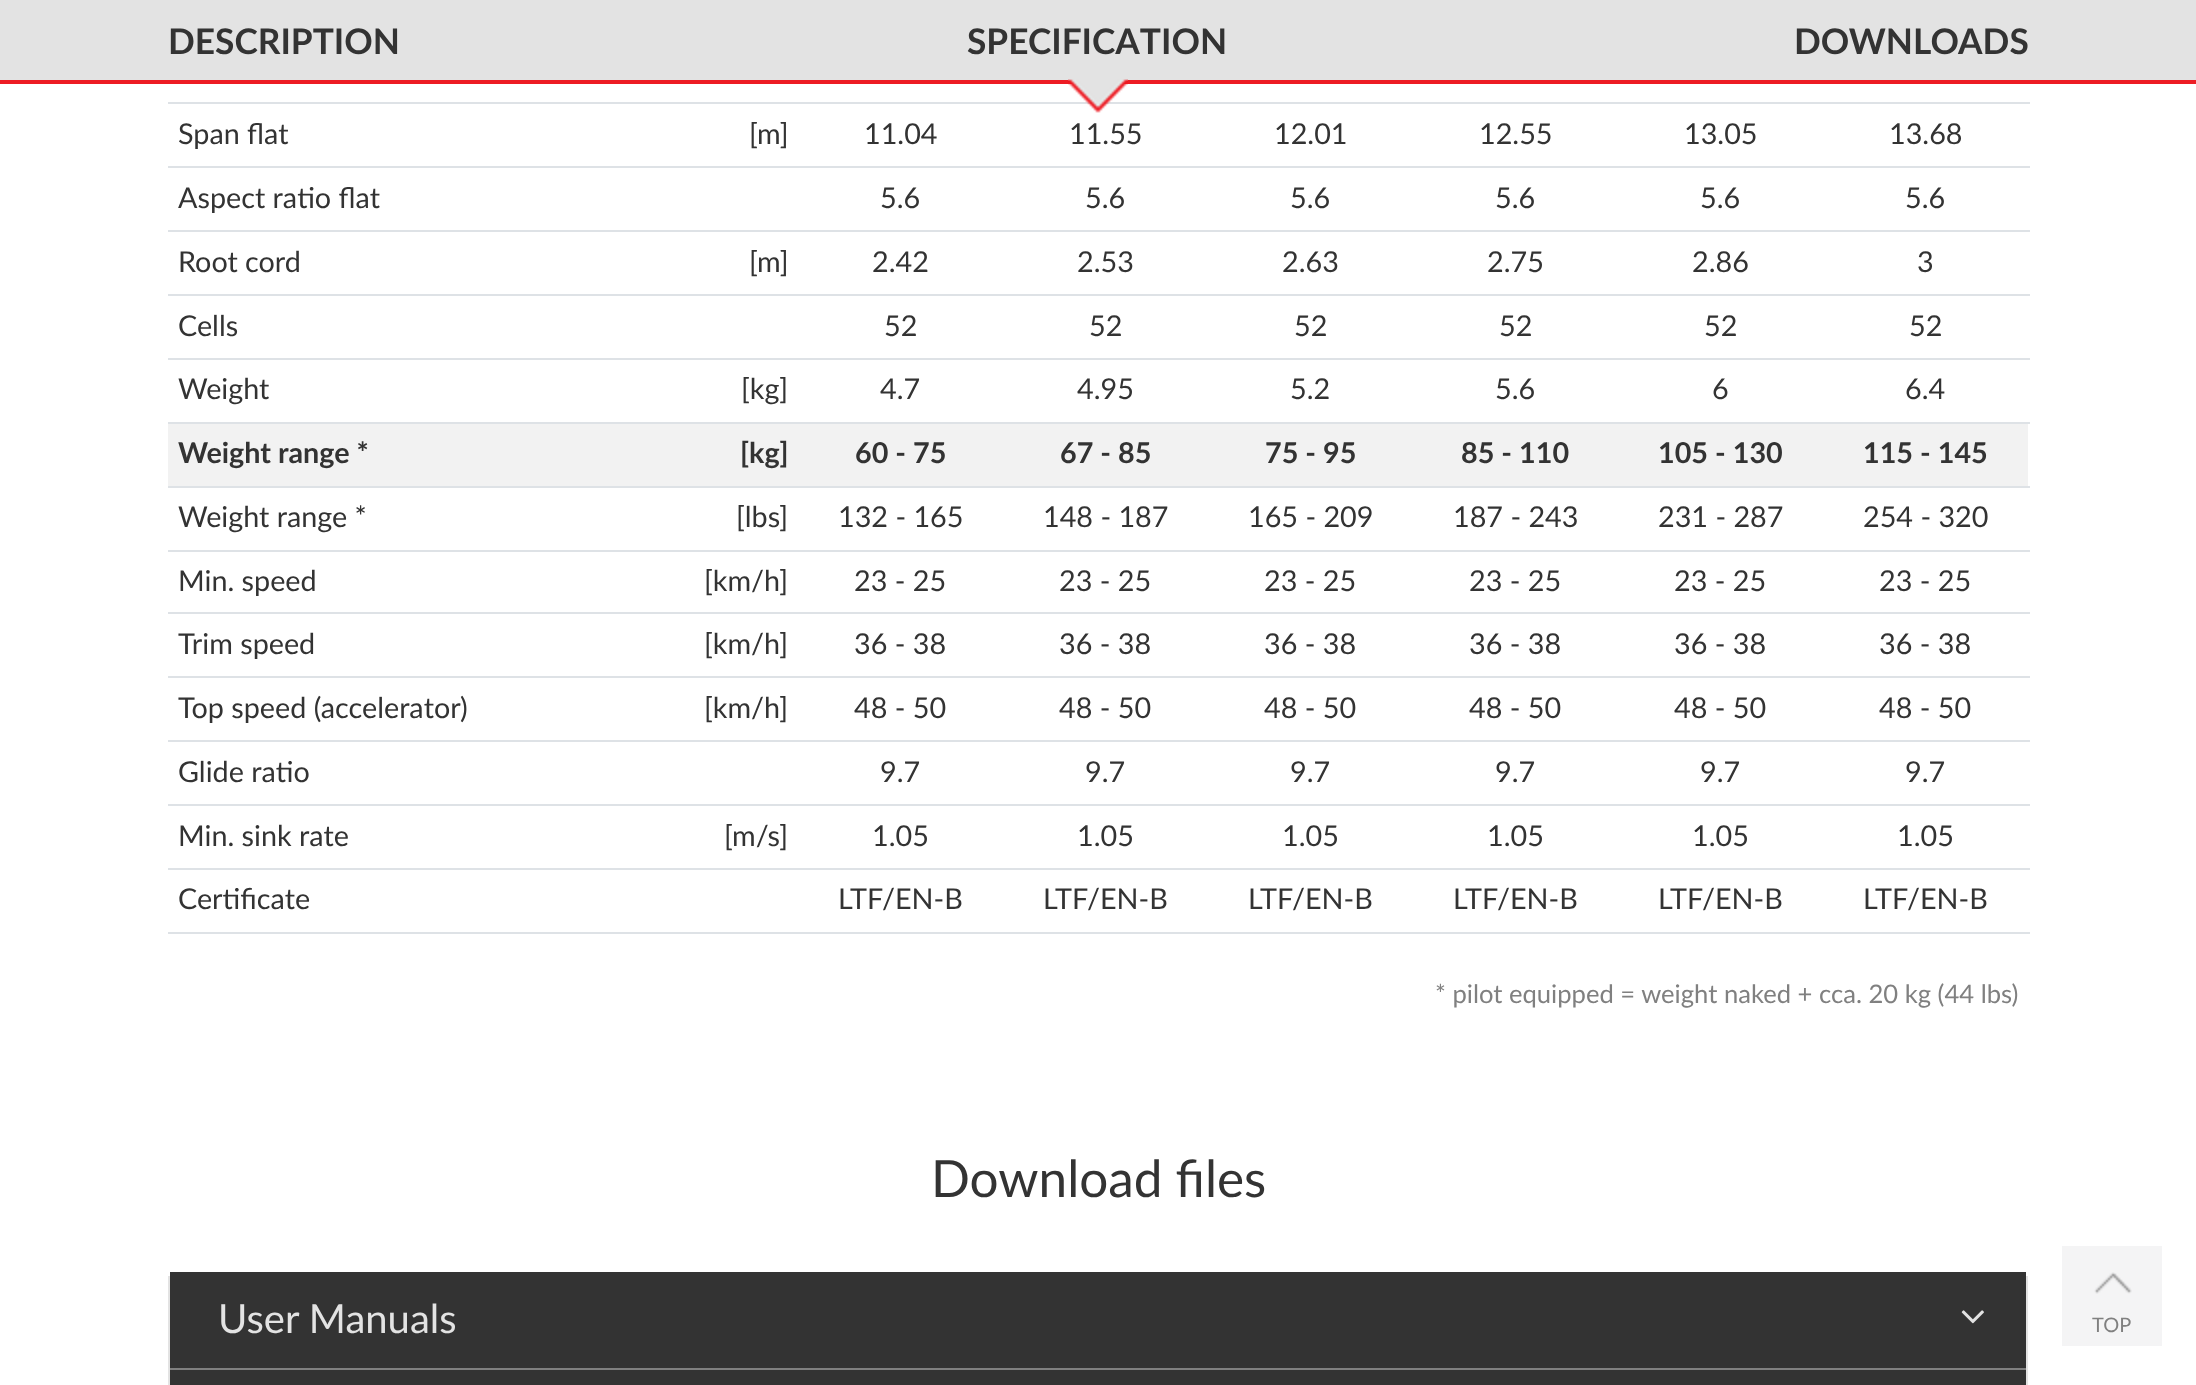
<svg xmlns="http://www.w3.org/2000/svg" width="2196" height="1385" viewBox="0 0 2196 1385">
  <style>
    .t1 { font: bold 35.25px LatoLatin; fill: #333; }
    .t2 { font: 28.75px LatoLatin; fill: #333; }
    .t3 { font: bold 28.75px LatoLatin; fill: #333; }
    .t4 { font: 25.6px LatoLatin; fill: #808080; }
    .t5 { font: 51.25px LatoLatin; fill: #333; }
    .t6 { font: 40px LatoLatin; fill: #e3e3e3; }
    .t7 { font: 20px LatoLatin; fill: #808080; }
  </style>
  <rect width="100%" height="100%" fill="#fff"/>
  <rect x="0" y="0" width="2196" height="80" fill="#e3e3e3"/>
  <text x="168" y="54" class="t1">DESCRIPTION</text>
  <text x="967" y="54" class="t1">SPECIFICATION</text>
  <text x="1794" y="54" class="t1">DOWNLOADS</text>
  <rect x="0" y="80" width="2196" height="4" fill="#ed1c24"/>
  <rect x="168" y="102" width="1862" height="2" fill="#dee2e6"/>
  <image x="1068" y="79" width="60" height="34" href="images/1.png"/>
  <text x="178" y="144" class="t2">Span flat</text>
  <text x="749" y="144" class="t2">[m]</text>
  <text x="864" y="144" class="t2">11.04</text>
  <text x="1069" y="144" class="t2">11.55</text>
  <text x="1274" y="144" class="t2">12.01</text>
  <text x="1479" y="144" class="t2">12.55</text>
  <text x="1684" y="144" class="t2">13.05</text>
  <text x="1889" y="144" class="t2">13.68</text>
  <text x="178" y="208" class="t2">Aspect ratio flat</text>
  <text x="880" y="208" class="t2">5.6</text>
  <text x="1085" y="208" class="t2">5.6</text>
  <text x="1290" y="208" class="t2">5.6</text>
  <text x="1495" y="208" class="t2">5.6</text>
  <text x="1700" y="208" class="t2">5.6</text>
  <rect x="168" y="166" width="1862" height="2" fill="#dee2e6"/>
  <text x="1905" y="208" class="t2">5.6</text>
  <text x="178" y="272" class="t2">Root cord</text>
  <text x="749" y="272" class="t2">[m]</text>
  <text x="872" y="272" class="t2">2.42</text>
  <text x="1077" y="272" class="t2">2.53</text>
  <text x="1282" y="272" class="t2">2.63</text>
  <text x="1487" y="272" class="t2">2.75</text>
  <text x="1692" y="272" class="t2">2.86</text>
  <rect x="168" y="230" width="1862" height="2" fill="#dee2e6"/>
  <text x="1917" y="272" class="t2">3</text>
  <text x="178" y="336" class="t2">Cells</text>
  <text x="884" y="336" class="t2">52</text>
  <text x="1089" y="336" class="t2">52</text>
  <text x="1294" y="336" class="t2">52</text>
  <text x="1499" y="336" class="t2">52</text>
  <text x="1704" y="336" class="t2">52</text>
  <rect x="168" y="294" width="1862" height="2" fill="#dee2e6"/>
  <text x="1909" y="336" class="t2">52</text>
  <text x="178" y="399" class="t2">Weight</text>
  <text x="741" y="399" class="t2">[kg]</text>
  <text x="880" y="399" class="t2">4.7</text>
  <text x="1077" y="399" class="t2">4.95</text>
  <text x="1290" y="399" class="t2">5.2</text>
  <text x="1495" y="399" class="t2">5.6</text>
  <text x="1712" y="399" class="t2">6</text>
  <rect x="168" y="358" width="1862" height="2" fill="#dee2e6"/>
  <text x="1905" y="399" class="t2">6.4</text>
  <rect x="168" y="424" width="1860" height="62" fill="#f2f2f2"/>
  <text x="178" y="463" class="t3">Weight range *</text>
  <text x="740" y="463" class="t3">[kg]</text>
  <text x="855" y="463" class="t3">60 - 75</text>
  <text x="1060" y="463" class="t3">67 - 85</text>
  <text x="1265" y="463" class="t3">75 - 95</text>
  <text x="1461" y="463" class="t3">85 - 110</text>
  <text x="1658" y="463" class="t3">105 - 130</text>
  <rect x="168" y="422" width="1862" height="2" fill="#dee2e6"/>
  <text x="1863" y="463" class="t3">115 - 145</text>
  <text x="178" y="527" class="t2">Weight range *</text>
  <text x="736" y="527" class="t2">[lbs]</text>
  <text x="838" y="527" class="t2">132 - 165</text>
  <text x="1043" y="527" class="t2">148 - 187</text>
  <text x="1248" y="527" class="t2">165 - 209</text>
  <text x="1453" y="527" class="t2">187 - 243</text>
  <text x="1658" y="527" class="t2">231 - 287</text>
  <rect x="168" y="486" width="1862" height="2" fill="#dee2e6"/>
  <text x="1863" y="527" class="t2">254 - 320</text>
  <text x="178" y="591" class="t2">Min. speed</text>
  <text x="704" y="591" class="t2">[km/h]</text>
  <text x="854" y="591" class="t2">23 - 25</text>
  <text x="1059" y="591" class="t2">23 - 25</text>
  <text x="1264" y="591" class="t2">23 - 25</text>
  <text x="1469" y="591" class="t2">23 - 25</text>
  <text x="1674" y="591" class="t2">23 - 25</text>
  <rect x="168" y="550" width="1862" height="2" fill="#dee2e6"/>
  <text x="1879" y="591" class="t2">23 - 25</text>
  <text x="178" y="654" class="t2">Trim speed</text>
  <text x="704" y="654" class="t2">[km/h]</text>
  <text x="854" y="654" class="t2">36 - 38</text>
  <text x="1059" y="654" class="t2">36 - 38</text>
  <text x="1264" y="654" class="t2">36 - 38</text>
  <text x="1469" y="654" class="t2">36 - 38</text>
  <text x="1674" y="654" class="t2">36 - 38</text>
  <rect x="168" y="612" width="1862" height="2" fill="#dee2e6"/>
  <text x="1879" y="654" class="t2">36 - 38</text>
  <text x="178" y="718" class="t2">Top speed (accelerator)</text>
  <text x="704" y="718" class="t2">[km/h]</text>
  <text x="854" y="718" class="t2">48 - 50</text>
  <text x="1059" y="718" class="t2">48 - 50</text>
  <text x="1264" y="718" class="t2">48 - 50</text>
  <text x="1469" y="718" class="t2">48 - 50</text>
  <text x="1674" y="718" class="t2">48 - 50</text>
  <rect x="168" y="676" width="1862" height="2" fill="#dee2e6"/>
  <text x="1879" y="718" class="t2">48 - 50</text>
  <text x="178" y="782" class="t2">Glide ratio</text>
  <text x="880" y="782" class="t2">9.7</text>
  <text x="1085" y="782" class="t2">9.7</text>
  <text x="1290" y="782" class="t2">9.7</text>
  <text x="1495" y="782" class="t2">9.7</text>
  <text x="1700" y="782" class="t2">9.7</text>
  <rect x="168" y="740" width="1862" height="2" fill="#dee2e6"/>
  <text x="1905" y="782" class="t2">9.7</text>
  <text x="178" y="846" class="t2">Min. sink rate</text>
  <text x="724" y="846" class="t2">[m/s]</text>
  <text x="872" y="846" class="t2">1.05</text>
  <text x="1077" y="846" class="t2">1.05</text>
  <text x="1282" y="846" class="t2">1.05</text>
  <text x="1487" y="846" class="t2">1.05</text>
  <text x="1692" y="846" class="t2">1.05</text>
  <rect x="168" y="804" width="1862" height="2" fill="#dee2e6"/>
  <text x="1897" y="846" class="t2">1.05</text>
  <text x="178" y="909" class="t2">Certificate</text>
  <text x="838" y="909" class="t2">LTF/EN-B</text>
  <text x="1043" y="909" class="t2">LTF/EN-B</text>
  <text x="1248" y="909" class="t2">LTF/EN-B</text>
  <text x="1453" y="909" class="t2">LTF/EN-B</text>
  <text x="1658" y="909" class="t2">LTF/EN-B</text>
  <rect x="168" y="868" width="1862" height="2" fill="#dee2e6"/>
  <text x="1863" y="909" class="t2">LTF/EN-B</text>
  <rect x="168" y="932" width="1862" height="2" fill="#dee2e6"/>
  <text x="1435" y="1003" class="t4">* pilot equipped = weight naked + cca. 20 kg (44 lbs)</text>
  <text x="931" y="1197" class="t5">Download files</text>
  <rect x="2026" y="1276" width="2" height="109" fill="#e3e3e3"/>
  <rect x="168" y="1276" width="2" height="109" fill="#e3e3e3"/>
  <rect x="170" y="1272" width="1856" height="96" fill="#333"/>
  <rect x="170" y="1368" width="1856" height="2" fill="#808080"/>
  <text x="218" y="1333" class="t6">User Manuals</text>
  <image x="1961" y="1310" width="23" height="14" href="images/2.png"/>
  <rect x="170" y="1370" width="1856" height="15" fill="#333"/>
  <rect x="2062" y="1246" width="100" height="100" fill="#f4f4f5"/>
  <image x="2094" y="1272" width="38" height="22" href="images/3.png"/>
  <text x="2092" y="1332" class="t7">TOP</text>
</svg>
